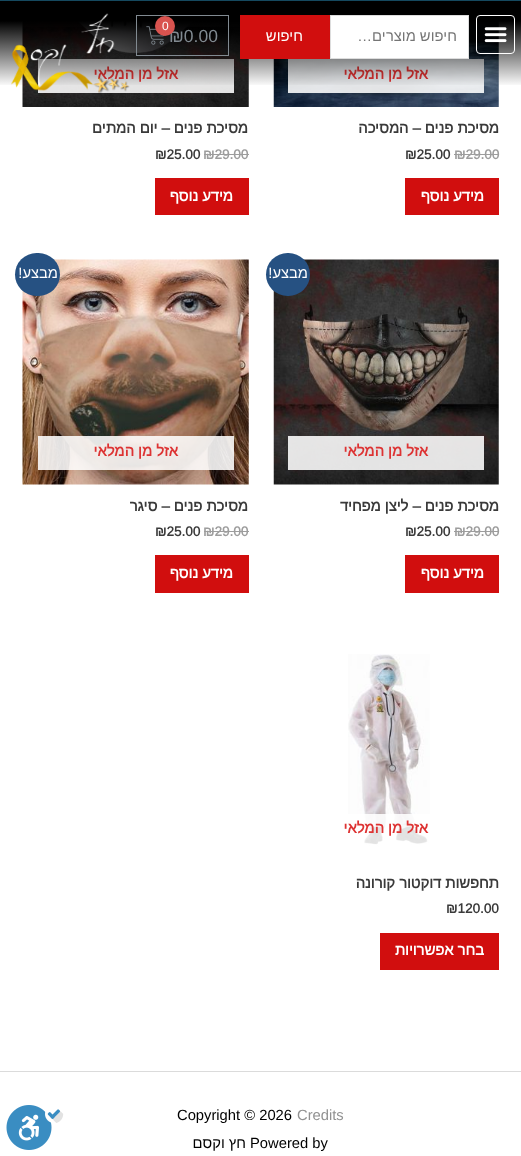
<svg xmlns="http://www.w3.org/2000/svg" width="521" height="1156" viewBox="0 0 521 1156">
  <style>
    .t1 { font: bold 14.75px Arimo; direction: rtl; fill: #d33; }
    .t2 { font: 14.75px Arimo; direction: rtl; fill: #757575; }
    .t3 { font: 14.75px Arimo; direction: rtl; fill: #fff; }
    .t4 { font: 17.5px Arimo; fill: #818a91; }
    .t5 { font: 12px Arimo; fill: #fff; }
    .t6 { font: bold 14.75px Arimo; direction: rtl; fill: #3a3a3a; }
    .t7 { font: bold 13.5px Arimo; fill: #9d9d9d; }
    .t8 { font: bold 13.5px Arimo; fill: #3a3a3a; }
    .t9 { font: bold 14.75px Arimo; direction: rtl; fill: #fff; }
    .t10 { font: 14.75px Arimo; fill: #919191; }
    .t11 { font: 14.75px Arimo; fill: #000; }
    .t12 { font: 14.75px Arimo; direction: rtl; fill: #000; }
  </style>
  <defs>
    <linearGradient id="g1" gradientUnits="userSpaceOnUse" x1="261" y1="1.2" x2="261" y2="95"><stop offset="0.21" stop-color="#000"/><stop offset="0.91" stop-color="#000" stop-opacity="0"/></linearGradient>
  </defs>
  <rect width="100%" height="100%" fill="#fff"/>
  <rect x="0" y="0" width="521" height="1" fill="#15495f"/>
  <image x="6" y="1105" width="58" height="45" href="images/1.png"/>
  <image x="273" y="21" width="226" height="86" href="images/5.png"/>
  <rect x="288" y="59" width="196" height="34" fill="#ffffffe0"/>
  <text x="428" y="79" class="t1">אזל מן המלאי</text>
  <image x="22" y="21" width="227" height="86" href="images/6.png"/>
  <rect x="38" y="59" width="196" height="34" fill="#ffffffe0"/>
  <text x="178" y="79" class="t1">אזל מן המלאי</text>
  <rect x="0" y="1" width="521" height="84" fill="url(#g1)"/>
  <rect x="499" y="34" width="16" height="20" fill="#0000000d"/>
  <rect x="476.5" y="15.5" width="38" height="38" rx="3.5" fill="none" stroke="#fff"/>
  <image x="484" y="27" width="23" height="16" href="images/2.png"/>
  <rect x="330.5" y="15.5" width="138" height="43" fill="#fff" stroke="#ddd"/>
  <text x="457" y="41" class="t2">חיפוש מוצרים…</text>
  <rect x="240" y="15" width="90" height="44" fill="#d10e0e"/>
  <text x="303" y="41" class="t3">חיפוש</text>
  <rect x="136.5" y="15.5" width="92" height="40" fill="none" stroke="#818a91"/>
  <image x="146" y="26" width="19" height="19" href="images/3.png"/>
  <text x="169" y="42" class="t4">₪0.00</text>
  <circle cx="165" cy="26" r="10" fill="#d9534f"/>
  <text x="162" y="30" class="t5">0</text>
  <image x="11" y="13" width="119" height="80" href="images/4.png"/>
  <text x="499" y="133" class="t6">מסיכת פנים – המסיכה</text>
  <text x="454" y="159" class="t7">₪29.00</text>
  <rect x="454" y="154" width="45" height="1" fill="#9d9d9d"/>
  <text x="405" y="159" class="t8">₪25.00</text>
  <rect x="405" y="178" width="94" height="37" fill="#d10e0e"/>
  <text x="484" y="201" class="t9">מידע נוסף</text>
  <text x="248" y="133" class="t6">מסיכת פנים – יום המתים</text>
  <text x="203" y="159" class="t7">₪29.00</text>
  <rect x="204" y="154" width="45" height="1" fill="#9d9d9d"/>
  <text x="155" y="159" class="t8">₪25.00</text>
  <rect x="155" y="178" width="94" height="37" fill="#d10e0e"/>
  <text x="233" y="201" class="t9">מידע נוסף</text>
  <image x="273" y="259" width="226" height="226" href="images/7.png"/>
  <rect x="266" y="253" width="44" height="43" rx="21.5" fill="#265182"/>
  <text x="308" y="278" class="t3">מבצע!</text>
  <rect x="288" y="436" width="196" height="34" fill="#ffffffe0"/>
  <text x="428" y="456" class="t1">אזל מן המלאי</text>
  <text x="499" y="511" class="t6">מסיכת פנים – ליצן מפחיד</text>
  <text x="454" y="536" class="t7">₪29.00</text>
  <rect x="454" y="531" width="45" height="1" fill="#9d9d9d"/>
  <text x="405" y="536" class="t8">₪25.00</text>
  <rect x="405" y="555" width="94" height="38" fill="#d10e0e"/>
  <text x="484" y="578" class="t9">מידע נוסף</text>
  <image x="22" y="259" width="227" height="226" href="images/8.png"/>
  <rect x="15" y="253" width="45" height="43" rx="21.5" fill="#265182"/>
  <text x="58" y="278" class="t3">מבצע!</text>
  <rect x="38" y="436" width="196" height="34" fill="#ffffffe0"/>
  <text x="178" y="456" class="t1">אזל מן המלאי</text>
  <text x="248" y="511" class="t6">מסיכת פנים – סיגר</text>
  <text x="203" y="536" class="t7">₪29.00</text>
  <rect x="204" y="531" width="45" height="1" fill="#9d9d9d"/>
  <text x="155" y="536" class="t8">₪25.00</text>
  <rect x="155" y="555" width="94" height="38" fill="#d10e0e"/>
  <text x="233" y="578" class="t9">מידע נוסף</text>
  <image x="348" y="654" width="82" height="193" href="images/9.png"/>
  <rect x="348" y="814" width="82" height="33" fill="#ffffffe0"/>
  <text x="428" y="833" class="t1">אזל מן המלאי</text>
  <text x="499" y="888" class="t6">תחפשות דוקטור קורונה</text>
  <text x="446" y="913" class="t8">₪120.00</text>
  <rect x="380" y="933" width="119" height="37" fill="#d10e0e"/>
  <text x="484" y="955" class="t9">בחר אפשרויות</text>
  <rect x="0" y="1071" width="521" height="1" fill="#dbdbdb"/>
  <text x="297" y="1120" class="t10">Credits</text>
  <text x="177" y="1120" class="t11">Copyright © 2026</text>
  <text x="250" y="1148" class="t11">Powered by</text>
  <text x="246" y="1148" class="t12">חץ וקסם</text>
</svg>
